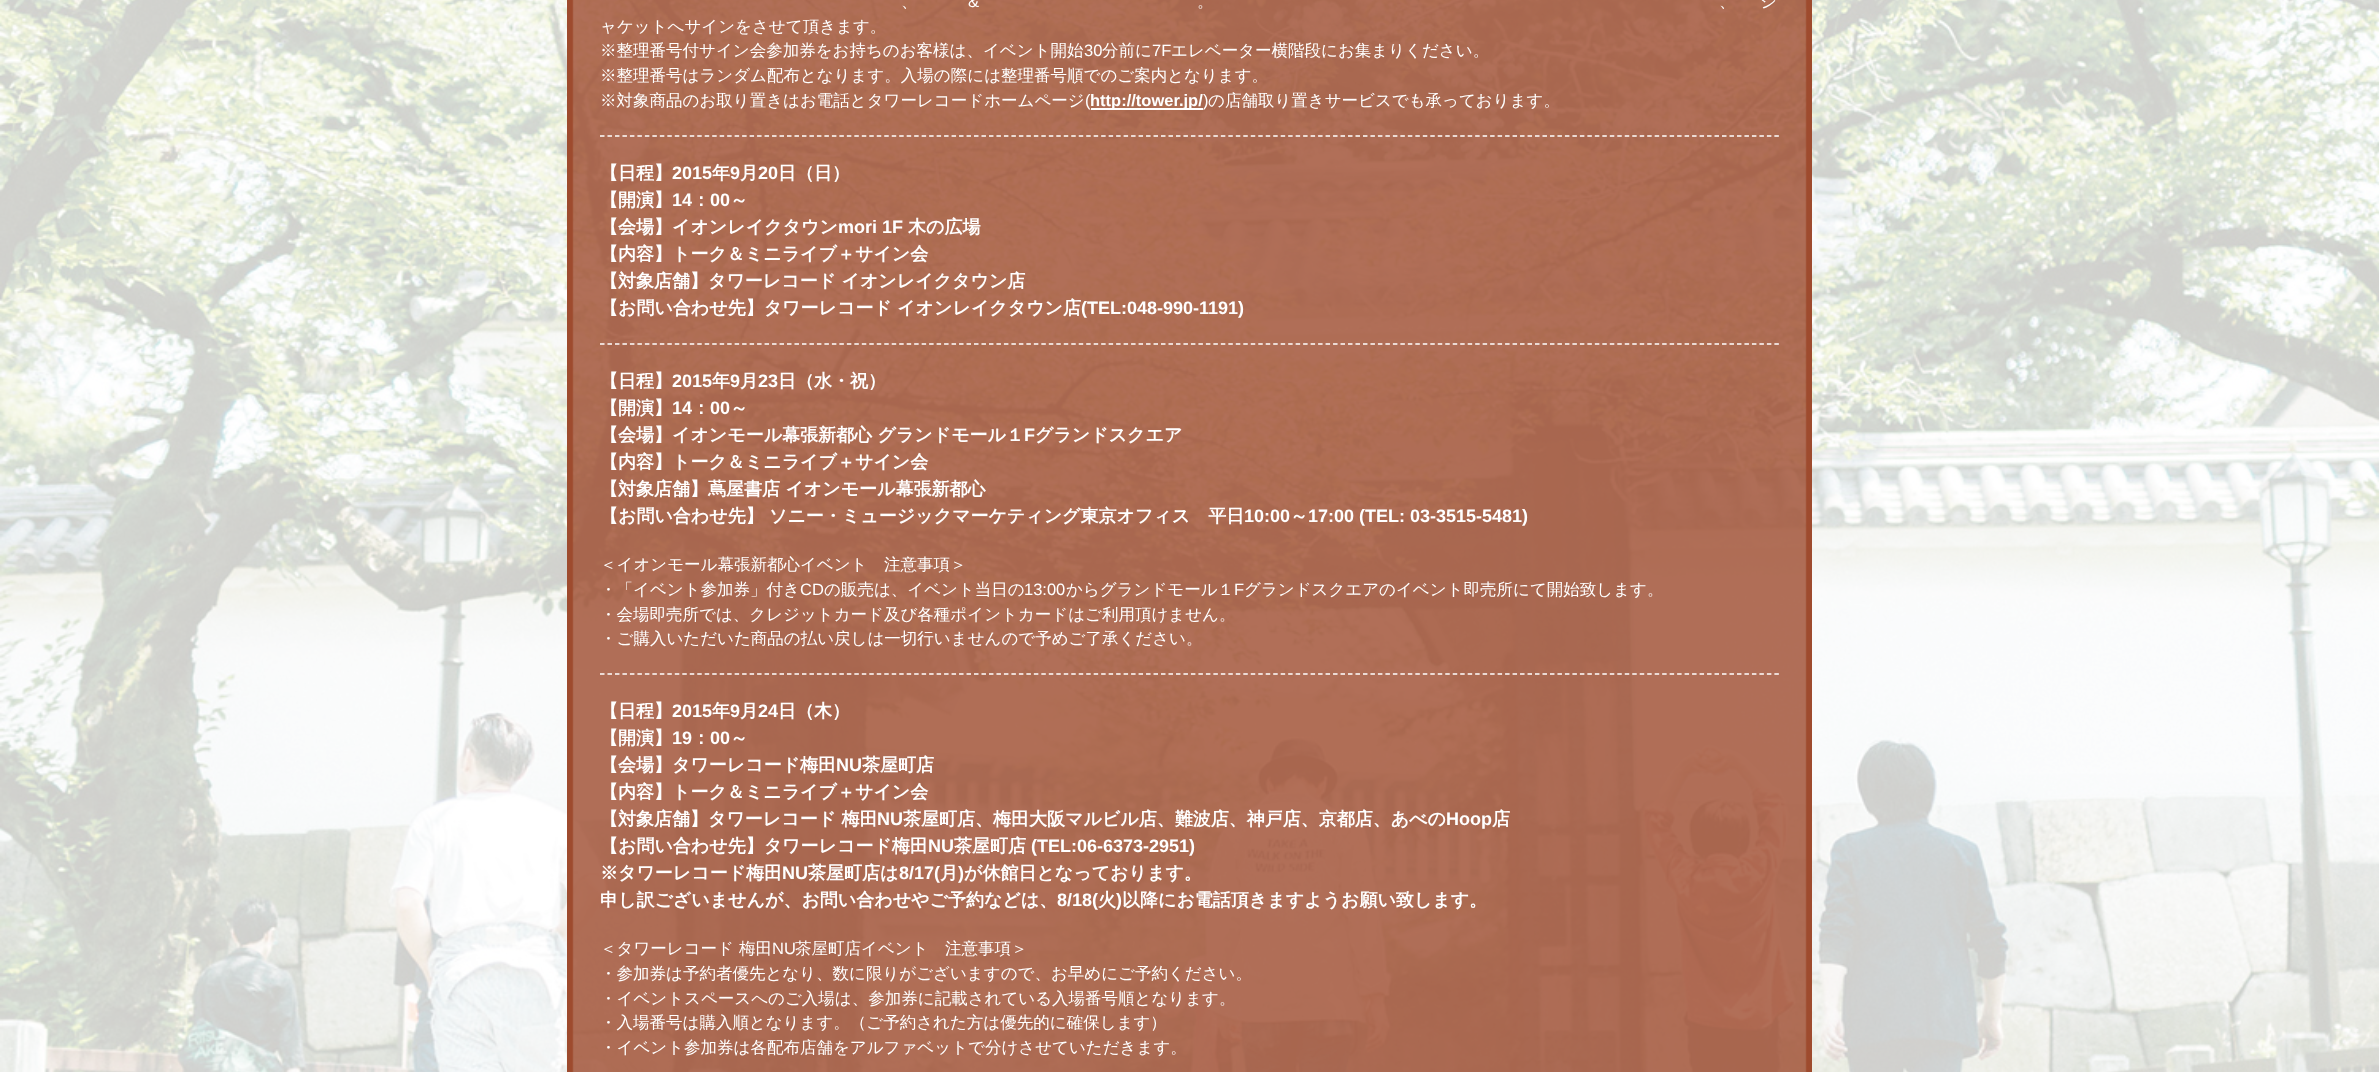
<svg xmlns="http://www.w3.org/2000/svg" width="2379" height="1072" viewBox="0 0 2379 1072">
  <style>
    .t1 { font: 500 16.5px WenQuanYi Zen Hei; fill: #fff; }
    .t2 { font: 16.5px Liberation Sans; fill: #fff; }
    .t3 { font: bold 16.5px Liberation Sans; fill: #fff; }
    .t4 { font: bold 18px WenQuanYi Zen Hei; fill: #fff; }
    .t5 { font: bold 18px Liberation Sans; fill: #fff; }
  </style>
  <rect width="100%" height="100%" fill="#fff"/>
  <image x="0" y="0" width="2379" height="1072" href="images/1.png"/>
  <image x="567" y="0" width="1245" height="1072" href="images/2.png"/>
  <path d="M600 136H1779" fill="none" stroke="#fff" stroke-width="1.5" stroke-dasharray="4.5 2.98"/>
  <text x="901" y="7" class="t1">、</text>
  <text x="968" y="7" class="t2">&amp;</text>
  <text x="1197" y="7" class="t1">。</text>
  <text x="1719" y="7" class="t1">、</text>
  <text x="1760" y="7" class="t1">ジ</text>
  <text x="600" y="32" class="t1">ャケットへサインをさせて頂きます。</text>
  <text x="600" y="56" class="t1">※整理番号付サイン会参加券をお持ちのお客様は、イベント開始</text>
  <text x="1084" y="56" class="t2">30</text>
  <text x="1102" y="56" class="t1">分前に</text>
  <text x="1152" y="56" class="t2">7F</text>
  <text x="1171" y="56" class="t1">エレベーター横階段にお集まりください。</text>
  <text x="600" y="81" class="t1">※整理番号はランダム配布となります。入場の際には整理番号順でのご案内となります。</text>
  <text x="600" y="106" class="t1">※対象商品のお取り置きはお電話とタワーレコードホームページ</text>
  <text x="1085" y="106" class="t2">(</text>
  <rect x="1091" y="108" width="112" height="2" fill="#fff"/>
  <text x="1090" y="106" class="t3">http://tower.jp/</text>
  <text x="1203" y="106" class="t2">)</text>
  <text x="1208" y="106" class="t1">の店舗取り置きサービスでも承っております。</text>
  <path d="M600 344H1779" fill="none" stroke="#fff" stroke-width="1.5" stroke-dasharray="4.5 2.98"/>
  <text x="600" y="179" class="t4">【日程】</text>
  <text x="672" y="179" class="t5">2015</text>
  <text x="712" y="179" class="t4">年</text>
  <text x="730" y="179" class="t5">9</text>
  <text x="740" y="179" class="t4">月</text>
  <text x="758" y="179" class="t5">20</text>
  <text x="778" y="179" class="t4">日（日）</text>
  <text x="600" y="206" class="t4">【開演】</text>
  <text x="672" y="206" class="t5">14</text>
  <text x="692" y="206" class="t4">：</text>
  <text x="710" y="206" class="t5">00</text>
  <text x="730" y="206" class="t4">～</text>
  <text x="600" y="233" class="t4">【会場】イオンレイクタウン</text>
  <text x="838" y="233" class="t5">mori 1F</text>
  <text x="908" y="233" class="t4">木の広場</text>
  <text x="600" y="260" class="t4">【内容】トーク＆ミニライブ＋サイン会</text>
  <text x="600" y="287" class="t4">【対象店舗】タワーレコード イオンレイクタウン店</text>
  <text x="600" y="314" class="t4">【お問い合わせ先】タワーレコード イオンレイクタウン店</text>
  <text x="1081" y="314" class="t5">(TEL:048-990-1191)</text>
  <path d="M600 674H1779" fill="none" stroke="#fff" stroke-width="1.5" stroke-dasharray="4.5 2.98"/>
  <text x="600" y="387" class="t4">【日程】</text>
  <text x="672" y="387" class="t5">2015</text>
  <text x="712" y="387" class="t4">年</text>
  <text x="730" y="387" class="t5">9</text>
  <text x="740" y="387" class="t4">月</text>
  <text x="758" y="387" class="t5">23</text>
  <text x="778" y="387" class="t4">日（水・祝）</text>
  <text x="600" y="414" class="t4">【開演】</text>
  <text x="672" y="414" class="t5">14</text>
  <text x="692" y="414" class="t4">：</text>
  <text x="710" y="414" class="t5">00</text>
  <text x="730" y="414" class="t4">～</text>
  <text x="600" y="441" class="t4">【会場】イオンモール幕張新都心 グランドモール１</text>
  <text x="1024" y="441" class="t5">F</text>
  <text x="1035" y="441" class="t4">グランドスクエア</text>
  <text x="600" y="468" class="t4">【内容】トーク＆ミニライブ＋サイン会</text>
  <text x="600" y="495" class="t4">【対象店舗】蔦屋書店 イオンモール幕張新都心</text>
  <text x="600" y="522" class="t4">【お問い合わせ先】</text>
  <text x="769" y="522" class="t4">ソニー・ミュージックマーケティング東京オフィス　平日</text>
  <text x="1244" y="522" class="t5">10:00</text>
  <text x="1290" y="522" class="t4">～</text>
  <text x="1308" y="522" class="t5">17:00 (TEL: 03-3515-5481)</text>
  <text x="600" y="570" class="t1">＜イオンモール幕張新都心イベント　注意事項＞</text>
  <text x="600" y="595" class="t1">・「イベント参加券」付き</text>
  <text x="800" y="595" class="t2">CD</text>
  <text x="824" y="595" class="t1">の販売は、イベント当日の</text>
  <text x="1024" y="595" class="t2">13:00</text>
  <text x="1066" y="595" class="t1">からグランドモール１</text>
  <text x="1234" y="595" class="t2">F</text>
  <text x="1244" y="595" class="t1">グランドスクエアのイベント即売所にて開始致します。</text>
  <text x="600" y="620" class="t1">・会場即売所では、クレジットカード及び各種ポイントカードはご利用頂けません。</text>
  <text x="600" y="644" class="t1">・ご購入いただいた商品の払い戻しは一切行いませんので予めご了承ください。</text>
  <text x="600" y="717" class="t4">【日程】</text>
  <text x="672" y="717" class="t5">2015</text>
  <text x="712" y="717" class="t4">年</text>
  <text x="730" y="717" class="t5">9</text>
  <text x="740" y="717" class="t4">月</text>
  <text x="758" y="717" class="t5">24</text>
  <text x="778" y="717" class="t4">日（木）</text>
  <text x="600" y="744" class="t4">【開演】</text>
  <text x="672" y="744" class="t5">19</text>
  <text x="692" y="744" class="t4">：</text>
  <text x="710" y="744" class="t5">00</text>
  <text x="730" y="744" class="t4">～</text>
  <text x="600" y="771" class="t4">【会場】タワーレコード梅田</text>
  <text x="836" y="771" class="t5">NU</text>
  <text x="862" y="771" class="t4">茶屋町店</text>
  <text x="600" y="798" class="t4">【内容】トーク＆ミニライブ＋サイン会</text>
  <text x="600" y="825" class="t4">【対象店舗】タワーレコード 梅田</text>
  <text x="877" y="825" class="t5">NU</text>
  <text x="903" y="825" class="t4">茶屋町店、梅田大阪マルビル店、難波店、神戸店、京都店、あべの</text>
  <text x="1446" y="825" class="t5">Hoop</text>
  <text x="1492" y="825" class="t4">店</text>
  <text x="600" y="852" class="t4">【お問い合わせ先】タワーレコード梅田</text>
  <text x="928" y="852" class="t5">NU</text>
  <text x="954" y="852" class="t4">茶屋町店</text>
  <text x="1031" y="852" class="t5">(TEL:06-6373-2951)</text>
  <text x="600" y="879" class="t4">※タワーレコード梅田</text>
  <text x="782" y="879" class="t5">NU</text>
  <text x="808" y="879" class="t4">茶屋町店は</text>
  <text x="899" y="879" class="t5">8/17(</text>
  <text x="940" y="879" class="t4">月</text>
  <text x="958" y="879" class="t5">)</text>
  <text x="964" y="879" class="t4">が休館日となっております。</text>
  <text x="600" y="906" class="t4">申し訳ございませんが、お問い合わせやご予約などは、</text>
  <text x="1057" y="906" class="t5">8/18(</text>
  <text x="1098" y="906" class="t4">火</text>
  <text x="1116" y="906" class="t5">)</text>
  <text x="1122" y="906" class="t4">以降にお電話頂きますようお願い致します。</text>
  <text x="600" y="954" class="t1">＜タワーレコード 梅田</text>
  <text x="772" y="954" class="t2">NU</text>
  <text x="795" y="954" class="t1">茶屋町店イベント　注意事項＞</text>
  <text x="600" y="979" class="t1">・参加券は予約者優先となり、数に限りがございますので、お早めにご予約ください。</text>
  <text x="600" y="1004" class="t1">・イベントスペースへのご入場は、参加券に記載されている入場番号順となります。</text>
  <text x="600" y="1028" class="t1">・入場番号は購入順となります。（ご予約された方は優先的に確保します）</text>
  <text x="600" y="1053" class="t1">・イベント参加券は各配布店舗をアルファベットで分けさせていただきます。</text>
</svg>
